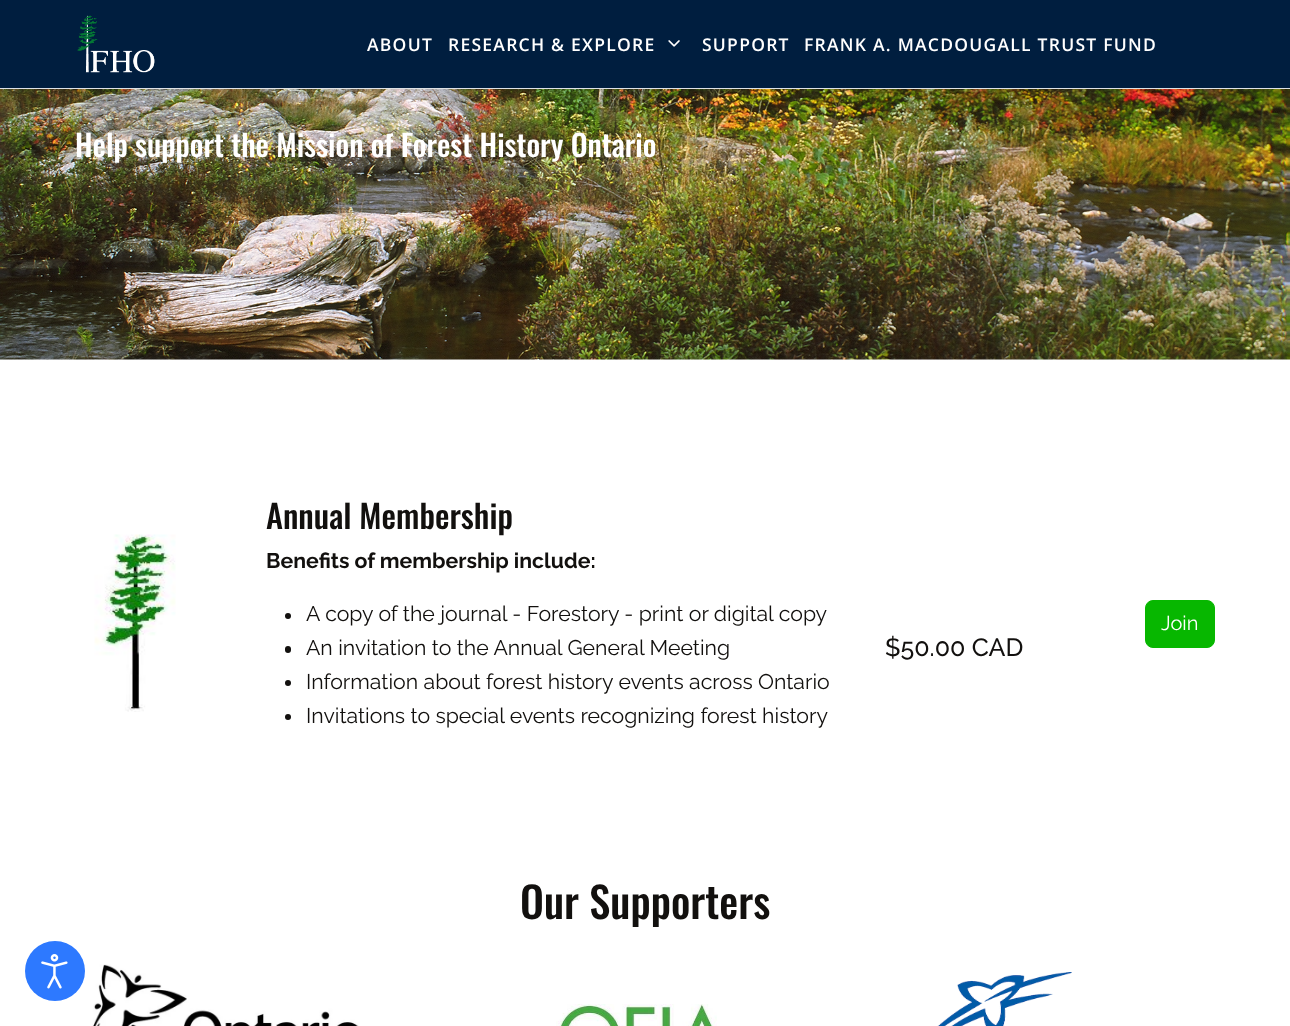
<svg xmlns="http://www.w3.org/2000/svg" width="1290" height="1026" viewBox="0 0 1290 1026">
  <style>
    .t1 { font: 600 17.5px Open Sans; letter-spacing: 1.25px; fill: #fff; }
    .t2 { font: 500 30px Oswald; fill: #fff; }
    .t3 { font: 500 32.5px Oswald; fill: #12100e; }
    .t4 { font: bold 21.25px Raleway; fill: #12100e; }
    .t5 { font: 21.25px Raleway; fill: #12100e; }
    .t6 { font: 500 25px Raleway; fill: #12100e; }
    .t7 { font: 20px Raleway; fill: #fff; }
    .t8 { font: 500 42.5px Oswald; fill: #12100e; }
  </style>
  <rect width="100%" height="100%" fill="#fff"/>
  <rect x="0" y="359" width="1290" height="1" fill="#f8f9fa"/>
  <image x="0" y="89" width="1290" height="271" href="images/3.png"/>
  <rect x="0" y="3" width="1290" height="88" fill="#00000012" filter="blur(2.5px)"/>
  <rect x="0" y="0" width="1290" height="88" fill="#001e3f"/>
  <rect x="0" y="88" width="1290" height="1" fill="#dee2e6"/>
  <image x="77" y="15" width="78" height="58" href="images/1.png"/>
  <text x="367" y="51" class="t1">ABOUT</text>
  <text x="448" y="51" class="t1">RESEARCH &amp; EXPLORE</text>
  <image x="668" y="40" width="12" height="7" href="images/2.png"/>
  <text x="702" y="51" class="t1">SUPPORT</text>
  <text x="804" y="51" class="t1">FRANK A. MACDOUGALL TRUST FUND</text>
  <text x="75" y="157" class="t2">Help support the Mission of Forest History Ontario</text>
  <image x="94" y="534" width="82" height="178" href="images/4.png"/>
  <text x="266" y="529" class="t3">Annual Membership</text>
  <text x="266" y="568" class="t4">Benefits of membership include:</text>
  <circle cx="288" cy="616" r="3" fill="#12100e"/>
  <text x="306" y="621" class="t5">A copy of the journal - Forestory - print or digital copy</text>
  <rect x="285" y="646" width="6" height="7" rx="3" fill="#12100e"/>
  <text x="306" y="655" class="t5">An invitation to the Annual General Meeting</text>
  <circle cx="288" cy="683" r="3" fill="#12100e"/>
  <text x="306" y="689" class="t5">Information about forest history events across Ontario</text>
  <circle cx="288" cy="717" r="3" fill="#12100e"/>
  <text x="306" y="723" class="t5">Invitations to special events recognizing forest history</text>
  <text x="885" y="656" class="t6">$50.00 CAD</text>
  <rect x="1145.5" y="600.5" width="69" height="47" rx="7.5" fill="#07b700" stroke="#07b700"/>
  <text x="1161" y="630" class="t7">Join</text>
  <text x="520" y="919" class="t8">Our Supporters</text>
  <image x="92" y="964" width="267" height="62" href="images/5.png"/>
  <image x="556" y="1004" width="161" height="22" href="images/6.png"/>
  <image x="937" y="972" width="135" height="54" href="images/7.png"/>
  <circle cx="55" cy="971" r="30" fill="#2d79ff"/>
  <image x="41" y="954" width="27" height="35" href="images/8.png"/>
</svg>
